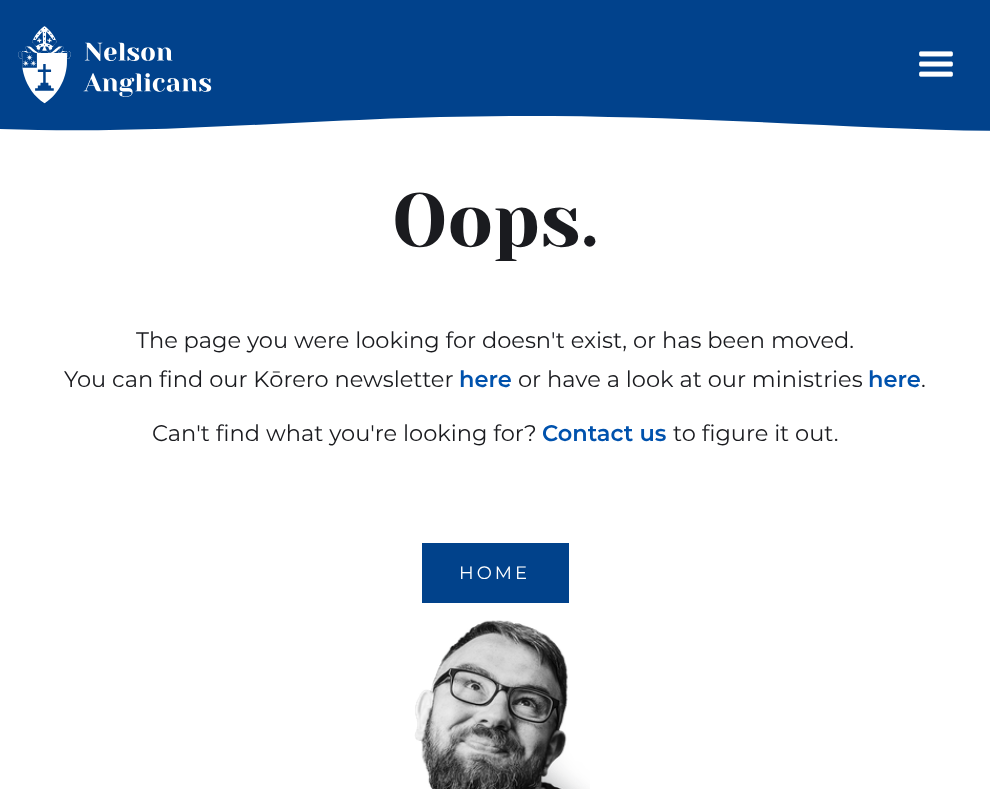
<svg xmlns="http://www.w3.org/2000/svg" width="990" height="789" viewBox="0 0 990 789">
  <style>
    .t1 { font: 75px Yeseva One; fill: #1a1b1f; }
    .t2 { font: 22.5px Montserrat; fill: #1a1b1f; }
    .t3 { font: 600 22.5px Montserrat; fill: #0052ad; }
    .t4 { font: 18px Montserrat; letter-spacing: 3px; fill: #fff; }
  </style>
  <defs>
    <clipPath id="clip1"><rect x="0" y="15" width="990" height="120"/></clipPath>
  </defs>
  <rect width="100%" height="100%" fill="#fff"/>
  <path d="M-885 79C-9 179 405 76 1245 81C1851 85 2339 136 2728 120C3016 108 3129 45 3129 45V-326H-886Z" fill="#01428c"/>
  <g clip-path="url(#clip1)">
    <path d="M-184 115C119 150 262 114 553 116C763 118 932 135 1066 130C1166 125 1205 104 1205 104V-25H-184Z" fill="#01428c"/>
  </g>
  <image x="18" y="26" width="194" height="78" href="images/1.png"/>
  <image x="919" y="51" width="34" height="26" href="images/2.png"/>
  <text x="392" y="246" class="t1">Oops.</text>
  <text x="136" y="348" class="t2">The page you were looking for doesn't exist, or has been moved.</text>
  <text x="64" y="387" class="t2">You can find our Kōrero newsletter</text>
  <text x="459" y="387" class="t3">here</text>
  <text x="518" y="387" class="t2">or have a look at our ministries</text>
  <text x="868" y="387" class="t3">here</text>
  <text x="921" y="387" class="t2">.</text>
  <text x="152" y="441" class="t2">Can't find what you're looking for?</text>
  <text x="542" y="441" class="t3">Contact us</text>
  <text x="673" y="441" class="t2">to figure it out.</text>
  <rect x="422" y="543" width="147" height="60" fill="#01428b"/>
  <text x="459" y="579" class="t4">HOME</text>
  <image x="414" y="620" width="176" height="169" href="images/3.png"/>
</svg>
